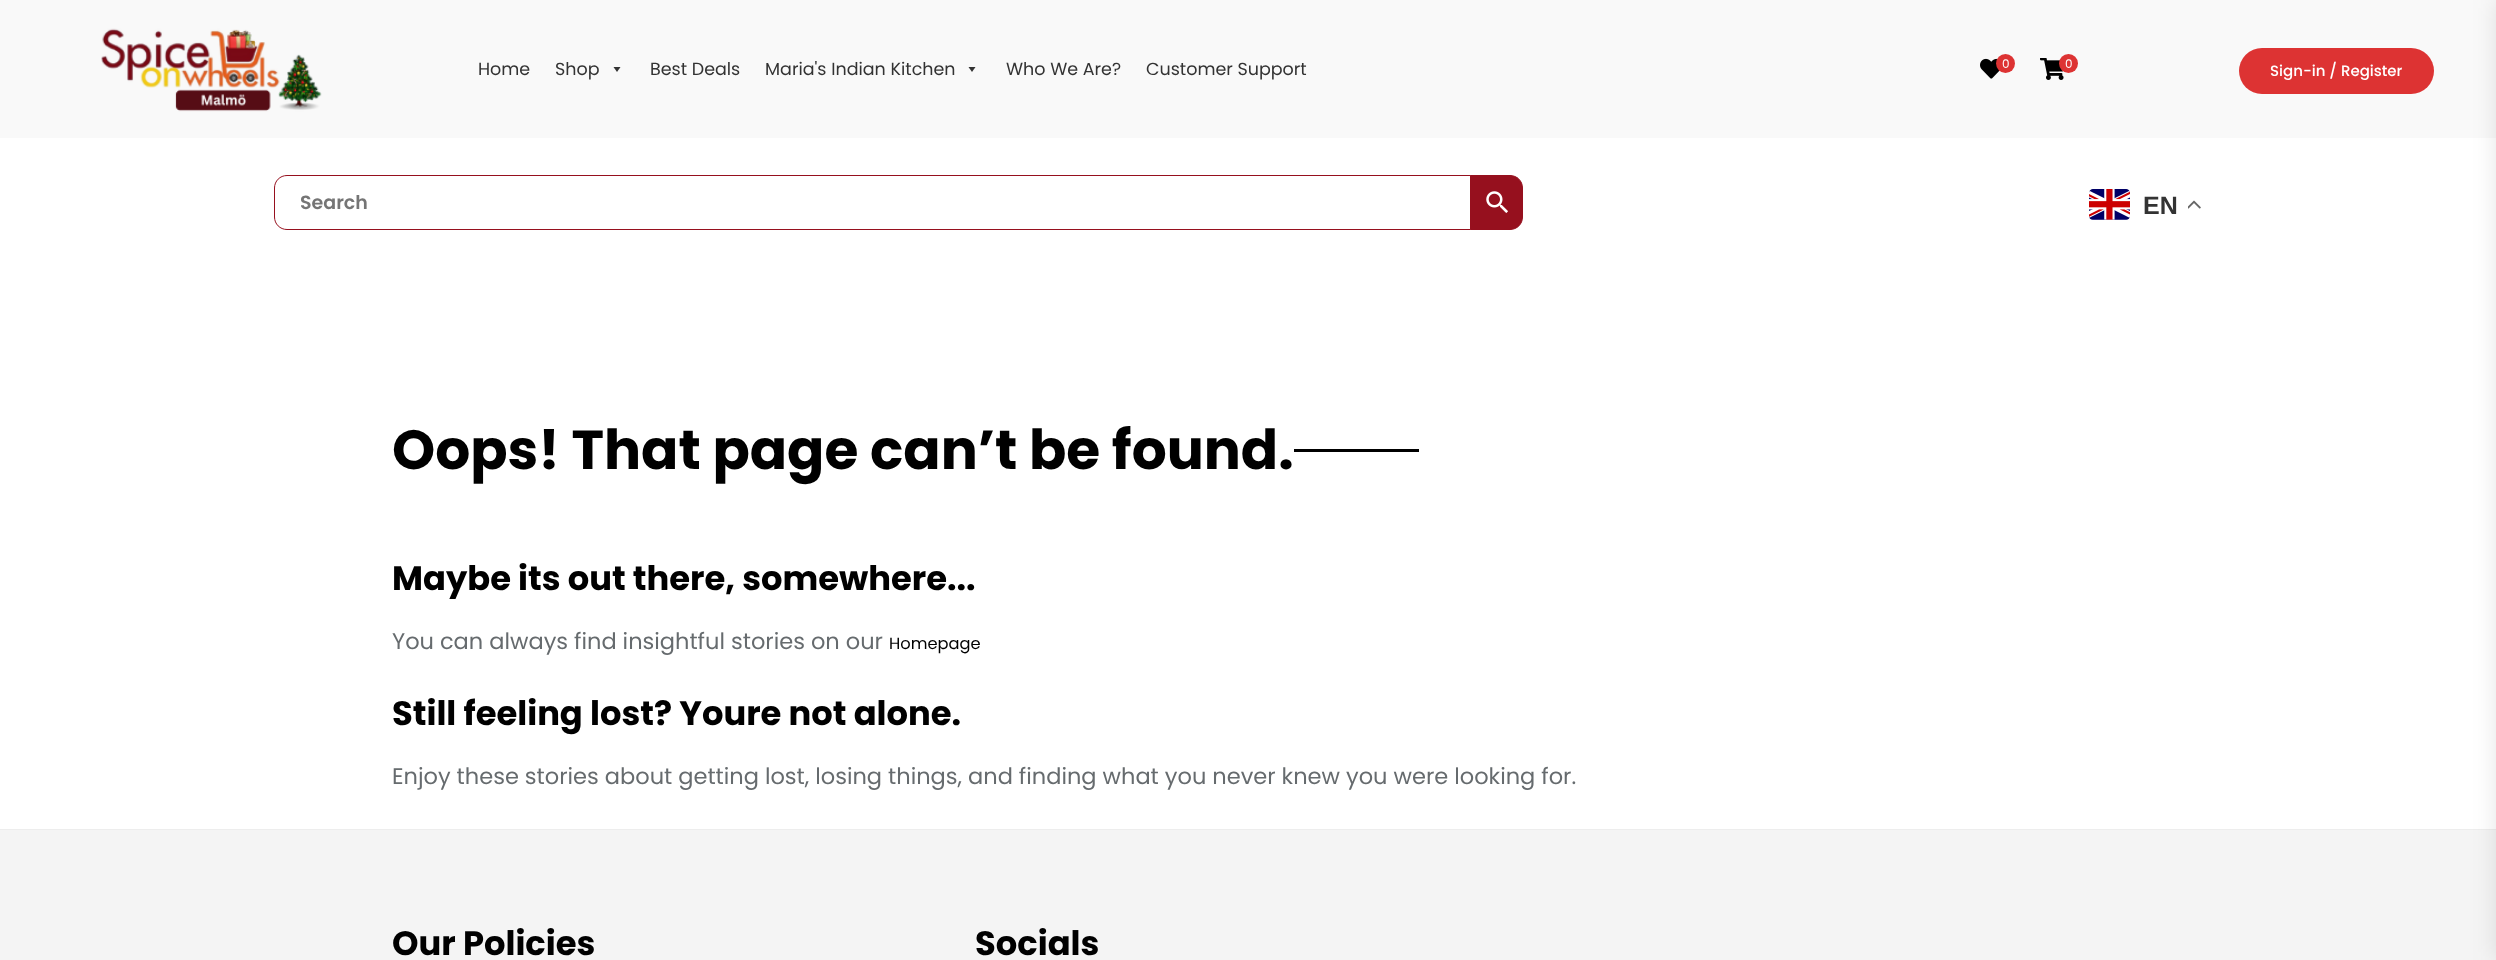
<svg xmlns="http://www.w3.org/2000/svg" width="2496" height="960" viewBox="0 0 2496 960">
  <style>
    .t1 { font: 17.5px Poppins; fill: #333; }
    .t2 { font: 12px Poppins; fill: #fff; }
    .t3 { font: 500 15px Poppins; fill: #fff; }
    .t4 { font: 600 19px Poppins; fill: #757575; }
    .t5 { font: bold 25px Liberation Sans; fill: #333; }
    .t6 { font: bold 55px Poppins; fill: #000; }
    .t7 { font: bold 33.75px Poppins; fill: #000; }
    .t8 { font: 22.5px Poppins; fill: #666b6e; }
    .t9 { font: 16.25px Poppins; fill: #000; }
  </style>
  <rect width="100%" height="100%" fill="#fff"/>
  <rect x="0" y="0" width="2496" height="138" fill="#f9f9f9"/>
  <image x="101" y="28" width="221" height="84" href="images/1.png"/>
  <text x="478" y="75" class="t1">Home</text>
  <text x="555" y="75" class="t1">Shop</text>
  <path d="M620.5 67L617 72L613.5 67Z" fill="#333"/>
  <text x="650" y="75" class="t1">Best Deals</text>
  <text x="765" y="75" class="t1">Maria's Indian Kitchen</text>
  <path d="M975.5 67L972 72L968.5 67Z" fill="#333"/>
  <text x="1006" y="75" class="t1">Who We Are?</text>
  <text x="1146" y="75" class="t1">Customer Support</text>
  <image x="1980" y="58" width="20" height="21" href="images/2.png"/>
  <circle cx="2005.5" cy="63.5" r="9.5" fill="#d33"/>
  <text x="2002" y="68" class="t2">0</text>
  <image x="2040" y="58" width="24" height="22" href="images/3.png"/>
  <circle cx="2068.5" cy="63.5" r="9.5" fill="#d33"/>
  <text x="2065" y="68" class="t2">0</text>
  <rect x="2239" y="48" width="195" height="46" rx="23" fill="#d33"/>
  <text x="2270" y="76" class="t3">Sign-in / Register</text>
  <path d="M1470.5 175.5H1510C1517 175.5 1522.5 181 1522.5 188V217C1522.5 224 1517 229.5 1510 229.5H1470.5Z" fill="#96101e" stroke="#96101e"/>
  <path d="M287 175.5H1470.5V229.5H287C280 229.5 274.5 224 274.5 217V188C274.5 181 280 175.5 287 175.5Z" fill="none" stroke="#96101e"/>
  <text x="300" y="209" class="t4">Search</text>
  <image x="1486" y="191" width="22" height="22" href="images/4.png"/>
  <image x="2089" y="189" width="41" height="31" href="images/5.png"/>
  <text x="2143" y="214" class="t5">EN</text>
  <image x="2188" y="200" width="13" height="9" href="images/6.png"/>
  <rect x="0" y="830" width="2496" height="130" fill="#f4f4f4"/>
  <rect x="0" y="829" width="2496" height="1" fill="#ededed"/>
  <rect x="2496" y="0" width="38" height="960" fill="#0000001a" filter="blur(12.5px)"/>
  <text x="392" y="469" class="t6">Oops! That page can’t be found.</text>
  <rect x="1294" y="449" width="125" height="3" fill="#000"/>
  <text x="392" y="590" class="t7">Maybe its out there, somewhere...</text>
  <text x="392" y="649" class="t8">You can always find insightful stories on our</text>
  <text x="889" y="649" class="t9">Homepage</text>
  <text x="392" y="725" class="t7">Still feeling lost? Youre not alone.</text>
  <text x="392" y="784" class="t8">Enjoy these stories about getting lost, losing things, and finding what you never knew you were looking for.</text>
  <text x="392" y="955" class="t7">Our Policies</text>
  <text x="975" y="955" class="t7">Socials</text>
</svg>
